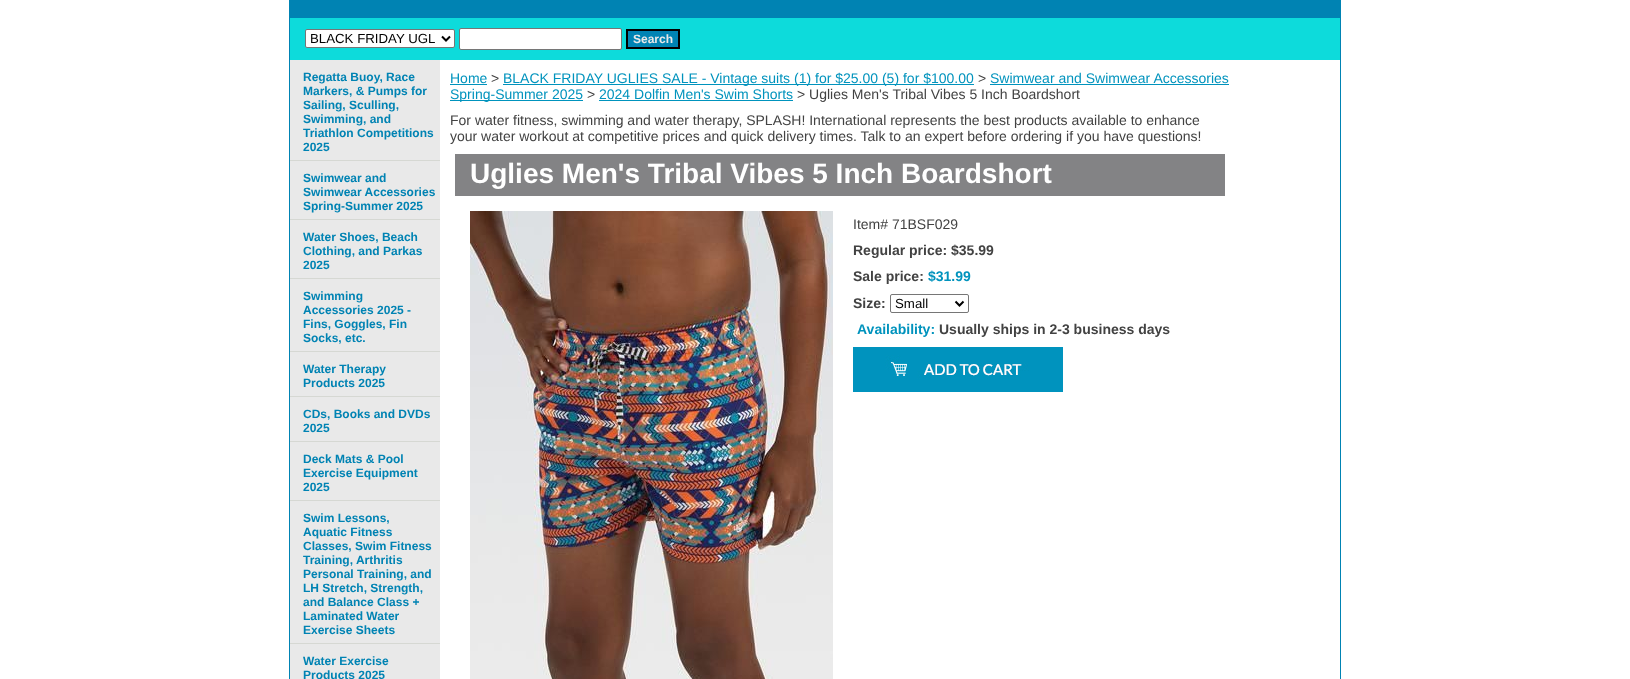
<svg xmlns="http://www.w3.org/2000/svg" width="1630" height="679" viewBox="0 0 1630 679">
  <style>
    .t1 { font: 13.25px Liberation Sans; fill: #000; }
    .t2 { font: bold 12px Liberation Sans; fill: #e9e9e9; }
    .t3 { font: bold 12px Liberation Sans; fill: #0083b3; }
    .t4 { font: 14px Liberation Sans; fill: #0093bd; }
    .t5 { font: 14px Liberation Sans; fill: #424242; }
    .t6 { font: bold 28px Liberation Sans; fill: #fff; }
    .t7 { font: bold 14px Liberation Sans; fill: #424242; }
    .t8 { font: bold 14px Liberation Sans; fill: #0093bd; }
  </style>
  <rect width="100%" height="100%" fill="#fff"/>
  <rect x="289.5" y="-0.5" width="1051" height="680" fill="none" stroke="#0083b3"/>
  <rect x="290" y="0" width="1050" height="18" fill="#0083b3"/>
  <rect x="290" y="18" width="1050" height="42" fill="#0ddbdb"/>
  <rect x="305.5" y="29.5" width="149" height="18" rx="1.5" fill="#fff" stroke="#767676"/>
  <path d="M442 36.5L446 40.5L450 36.5" fill="none" stroke="#000" stroke-width="2"/>
  <text x="310" y="43" class="t1">BLACK FRIDAY UGL</text>
  <rect x="459.5" y="28.5" width="162" height="21" rx="1.5" fill="#fff" stroke="#767676"/>
  <rect x="627" y="30" width="52" height="18" fill="#0083b3" stroke="#000" stroke-width="2"/>
  <text x="633" y="43" class="t2">Search</text>
  <rect x="290" y="60" width="150" height="619" fill="#e9e9e9"/>
  <rect x="290" y="160" width="150" height="1" fill="#d6d8d3"/>
  <text x="303" y="81" class="t3">Regatta Buoy, Race</text>
  <text x="303" y="95" class="t3">Markers, &amp; Pumps for</text>
  <text x="303" y="109" class="t3">Sailing, Sculling,</text>
  <text x="303" y="123" class="t3">Swimming, and</text>
  <text x="303" y="137" class="t3">Triathlon Competitions</text>
  <text x="303" y="151" class="t3">2025</text>
  <rect x="290" y="219" width="150" height="1" fill="#d6d8d3"/>
  <text x="303" y="182" class="t3">Swimwear and</text>
  <text x="303" y="196" class="t3">Swimwear Accessories</text>
  <text x="303" y="210" class="t3">Spring-Summer 2025</text>
  <rect x="290" y="278" width="150" height="1" fill="#d6d8d3"/>
  <text x="303" y="241" class="t3">Water Shoes, Beach</text>
  <text x="303" y="255" class="t3">Clothing, and Parkas</text>
  <text x="303" y="269" class="t3">2025</text>
  <rect x="290" y="351" width="150" height="1" fill="#d6d8d3"/>
  <text x="303" y="300" class="t3">Swimming</text>
  <text x="303" y="314" class="t3">Accessories 2025 -</text>
  <text x="303" y="328" class="t3">Fins, Goggles, Fin</text>
  <text x="303" y="342" class="t3">Socks, etc.</text>
  <rect x="290" y="396" width="150" height="1" fill="#d6d8d3"/>
  <text x="303" y="373" class="t3">Water Therapy</text>
  <text x="303" y="387" class="t3">Products 2025</text>
  <rect x="290" y="441" width="150" height="1" fill="#d6d8d3"/>
  <text x="303" y="418" class="t3">CDs, Books and DVDs</text>
  <text x="303" y="432" class="t3">2025</text>
  <rect x="290" y="500" width="150" height="1" fill="#d6d8d3"/>
  <text x="303" y="463" class="t3">Deck Mats &amp; Pool</text>
  <text x="303" y="477" class="t3">Exercise Equipment</text>
  <text x="303" y="491" class="t3">2025</text>
  <rect x="290" y="643" width="150" height="1" fill="#d6d8d3"/>
  <text x="303" y="522" class="t3">Swim Lessons,</text>
  <text x="303" y="536" class="t3">Aquatic Fitness</text>
  <text x="303" y="550" class="t3">Classes, Swim Fitness</text>
  <text x="303" y="564" class="t3">Training, Arthritis</text>
  <text x="303" y="578" class="t3">Personal Training, and</text>
  <text x="303" y="592" class="t3">LH Stretch, Strength,</text>
  <text x="303" y="606" class="t3">and Balance Class +</text>
  <text x="303" y="620" class="t3">Laminated Water</text>
  <text x="303" y="634" class="t3">Exercise Sheets</text>
  <text x="303" y="665" class="t3">Water Exercise</text>
  <text x="303" y="679" class="t3">Products 2025</text>
  <text x="450" y="83" class="t4">Home</text>
  <rect x="450" y="84" width="37" height="1" fill="#0093bd"/>
  <text x="491" y="83" class="t5">&gt;</text>
  <rect x="503" y="84" width="471" height="1" fill="#0093bd"/>
  <text x="503" y="83" class="t4">BLACK FRIDAY UGLIES SALE - Vintage suits (1) for $25.00 (5) for $100.00</text>
  <text x="978" y="83" class="t5">&gt;</text>
  <text x="990" y="83" class="t4">Swimwear and Swimwear Accessories</text>
  <rect x="990" y="84" width="239" height="1" fill="#0093bd"/>
  <rect x="450" y="100" width="133" height="1" fill="#0093bd"/>
  <text x="450" y="99" class="t4">Spring-Summer 2025</text>
  <text x="587" y="99" class="t5">&gt;</text>
  <text x="599" y="99" class="t4">2024 Dolfin Men's Swim Shorts</text>
  <rect x="599" y="100" width="194" height="1" fill="#0093bd"/>
  <text x="797" y="99" class="t5">&gt; Uglies Men's Tribal Vibes 5 Inch Boardshort</text>
  <text x="450" y="125" class="t5">For water fitness, swimming and water therapy, SPLASH! International represents the best products available to enhance</text>
  <text x="450" y="141" class="t5">your water workout at competitive prices and quick delivery times. Talk to an expert before ordering if you have questions!</text>
  <rect x="455" y="154" width="770" height="42" fill="#838385"/>
  <text x="470" y="183" class="t6">Uglies Men's Tribal Vibes 5 Inch Boardshort</text>
  <image x="470" y="211" width="363" height="468" href="images/1.png"/>
  <text x="853" y="229" class="t5">Item# 71BSF029</text>
  <text x="853" y="255" class="t7">Regular price: $35.99</text>
  <text x="853" y="281" class="t7">Sale price:</text>
  <text x="928" y="281" class="t8">$31.99</text>
  <text x="853" y="308" class="t7">Size:</text>
  <rect x="890.5" y="294.5" width="78" height="18" rx="1.5" fill="none" stroke="#767676"/>
  <path d="M955.5 301.5L959.5 305.5L963.5 301.5" fill="none" stroke="#000" stroke-width="2"/>
  <text x="895" y="308" class="t1">Small</text>
  <text x="857" y="334" class="t8">Availability:</text>
  <text x="939" y="334" class="t7">Usually ships in 2-3 business days</text>
  <image x="853" y="347" width="210" height="45" href="images/2.png"/>
</svg>
